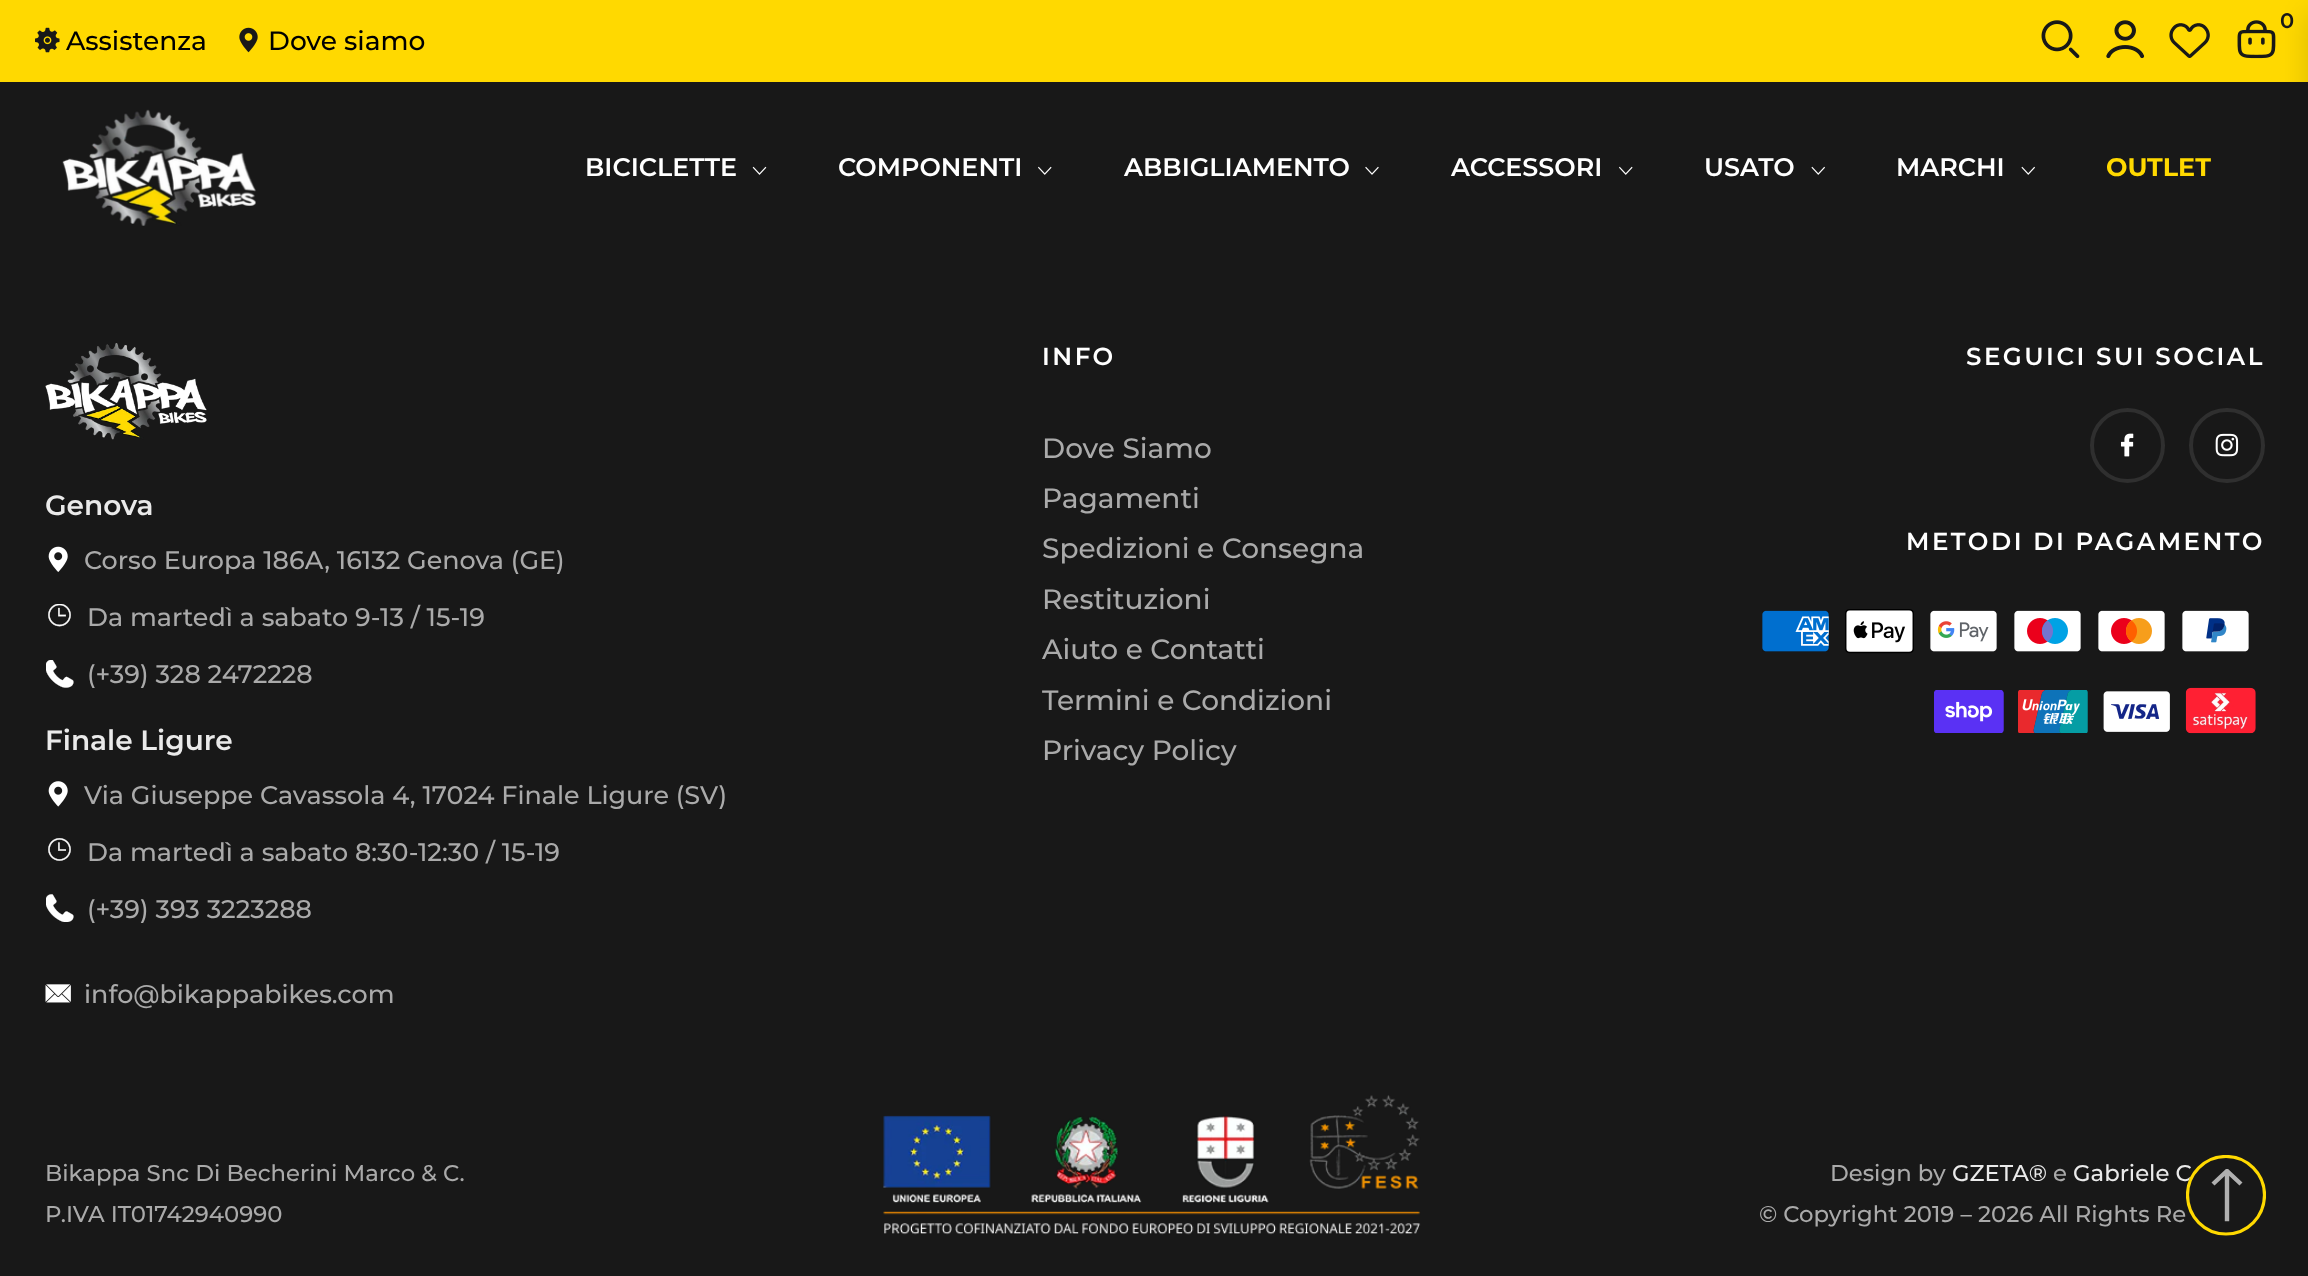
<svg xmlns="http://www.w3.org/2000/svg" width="2308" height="1276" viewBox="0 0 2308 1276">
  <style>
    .t1 { font: 500 22.75px Montserrat; fill: #eaeaea; }
    .t2 { font: 600 21px Montserrat; fill: #181818; }
    .t3 { font: 500 26.5px Montserrat; fill: #000; }
    .t4 { font: 600 25.4px Montserrat; fill: #fff; }
    .t5 { font: bold 25.4px Montserrat; fill: #ffd900; }
    .t6 { font: 600 24.5px Montserrat; letter-spacing: 2.5px; fill: #fff; }
    .t7 { font: 500 28px Montserrat; fill: #aaa; }
    .t8 { font: 600 28px Montserrat; fill: #eaeaea; }
    .t9 { font: 500 25.4px Montserrat; fill: #aaa; }
    .t10 { font: 500 22.75px Montserrat; fill: #aaa; }
  </style>
  <defs>
    <clipPath id="clip1"><rect x="2186" y="1155" width="80" height="81"/></clipPath>
    <clipPath id="clip2"><path d="M2200 1221.5V1169H2252V1221.5Z"/></clipPath>
  </defs>
  <rect width="100%" height="100%" fill="#181818"/>
  <rect x="0" y="0" width="2308" height="82" fill="#ffd900"/>
  <image x="2041" y="20" width="39" height="39" href="images/1.png"/>
  <image x="2106" y="20" width="39" height="39" href="images/2.png"/>
  <image x="2169" y="23" width="41" height="35" href="images/3.png"/>
  <image x="2237" y="20" width="39" height="39" href="images/4.png"/>
  <text x="2073" y="1181" class="t1">Gabriele C</text>
  <rect x="2186" y="1155" width="80" height="81" rx="40" fill="#181818"/>
  <g clip-path="url(#clip1)">
    <path d="M2226 1156.5C2247.5 1156.5 2264.5 1174 2264.5 1195C2264.5 1216.5 2247.5 1234 2226 1234C2204.5 1234 2187.5 1216.5 2187.5 1195C2187.5 1174 2204.5 1156.5 2226 1156.5" fill="none" stroke="#ffd900" stroke-width="3.2"/>
  </g>
  <rect x="2308" y="14" width="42" height="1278" fill="#00000026" filter="blur(14px)"/>
  <text x="2280" y="28" class="t2">0</text>
  <image x="35" y="27" width="25" height="26" href="images/5.png"/>
  <text x="66" y="50" class="t3">Assistenza</text>
  <image x="239" y="27" width="19" height="26" href="images/6.png"/>
  <text x="268" y="50" class="t3">Dove siamo</text>
  <image x="62" y="109" width="194" height="117" href="images/7.png"/>
  <text x="585" y="176" class="t4">BICICLETTE</text>
  <image x="752" y="166" width="15" height="9" href="images/8.png"/>
  <text x="838" y="176" class="t4">COMPONENTI</text>
  <image x="1038" y="166" width="14" height="9" href="images/9.png"/>
  <text x="1124" y="176" class="t4">ABBIGLIAMENTO</text>
  <image x="1365" y="166" width="14" height="9" href="images/10.png"/>
  <text x="1451" y="176" class="t4">ACCESSORI</text>
  <image x="1619" y="166" width="14" height="9" href="images/9.png"/>
  <text x="1704" y="176" class="t4">USATO</text>
  <image x="1811" y="166" width="14" height="9" href="images/11.png"/>
  <text x="1896" y="176" class="t4">MARCHI</text>
  <image x="2021" y="166" width="14" height="9" href="images/11.png"/>
  <text x="2106" y="176" class="t5">OUTLET</text>
  <text x="1042" y="365" class="t6">INFO</text>
  <text x="1042" y="458" class="t7">Dove Siamo</text>
  <text x="1042" y="508" class="t7">Pagamenti</text>
  <text x="1042" y="558" class="t7">Spedizioni e Consegna</text>
  <text x="1042" y="609" class="t7">Restituzioni</text>
  <text x="1042" y="659" class="t7">Aiuto e Contatti</text>
  <text x="1042" y="710" class="t7">Termini e Condizioni</text>
  <text x="1042" y="760" class="t7">Privacy Policy</text>
  <text x="1966" y="365" class="t6">SEGUICI SUI SOCIAL</text>
  <circle cx="2127.5" cy="445.5" r="35.5" fill="none" stroke="#2f2f2f" stroke-width="4"/>
  <image x="2120" y="433" width="14" height="24" href="images/12.png"/>
  <rect x="2191" y="410" width="72" height="71" rx="35.5" fill="none" stroke="#2f2f2f" stroke-width="4"/>
  <image x="2215" y="433" width="24" height="24" href="images/13.png"/>
  <text x="1906" y="550" class="t6">METODI DI PAGAMENTO</text>
  <image x="1762" y="610" width="67" height="42" href="images/14.png"/>
  <image x="1845" y="609" width="69" height="45" href="images/15.png"/>
  <image x="1930" y="610" width="67" height="42" href="images/16.png"/>
  <image x="2014" y="610" width="67" height="42" href="images/17.png"/>
  <image x="2098" y="610" width="67" height="42" href="images/18.png"/>
  <image x="2182" y="610" width="67" height="42" href="images/19.png"/>
  <image x="1934" y="690" width="70" height="43" href="images/20.png"/>
  <image x="2018" y="690" width="70" height="43" href="images/21.png"/>
  <image x="2103" y="691" width="67" height="41" href="images/22.png"/>
  <image x="2185" y="687" width="71" height="47" href="images/23.png"/>
  <image x="45" y="343" width="162" height="97" href="images/24.png"/>
  <text x="45" y="515" class="t8">Genova</text>
  <image x="48" y="546" width="20" height="26" href="images/25.png"/>
  <text x="84" y="569" class="t9">Corso Europa 186A, 16132 Genova (GE)</text>
  <image x="48" y="604" width="23" height="23" href="images/26.png"/>
  <text x="87" y="626" class="t9">Da martedì a sabato 9-13 / 15-19</text>
  <image x="46" y="660" width="28" height="28" href="images/27.png"/>
  <text x="87" y="683" class="t9">(+39) 328 2472228</text>
  <text x="45" y="750" class="t8">Finale Ligure</text>
  <image x="48" y="781" width="20" height="26" href="images/28.png"/>
  <text x="84" y="804" class="t9">Via Giuseppe Cavassola 4, 17024 Finale Ligure (SV)</text>
  <image x="48" y="838" width="23" height="23" href="images/29.png"/>
  <text x="87" y="861" class="t9">Da martedì a sabato 8:30-12:30 / 15-19</text>
  <image x="46" y="894" width="28" height="28" href="images/30.png"/>
  <text x="87" y="918" class="t9">(+39) 393 3223288</text>
  <image x="45" y="984" width="26" height="19" href="images/31.png"/>
  <text x="84" y="1003" class="t9">info@bikappabikes.com</text>
  <text x="45" y="1181" class="t10">Bikappa Snc Di Becherini Marco &amp; C.</text>
  <text x="45" y="1222" class="t10">P.IVA IT01742940990</text>
  <image x="883" y="1095" width="538" height="140" href="images/32.png"/>
  <text x="1830" y="1181" class="t10">Design by</text>
  <text x="1952" y="1181" class="t1">GZETA®</text>
  <text x="2053" y="1181" class="t10">e</text>
  <text x="1759" y="1222" class="t10">© Copyright 2019 – 2026 All Rights Re</text>
  <g clip-path="url(#clip2)">
    <path d="M2241 1184L2227 1171L2213 1184M2227 1171V1221.5" fill="none" stroke="#b0b0b0" stroke-width="4.4"/>
  </g>
</svg>
